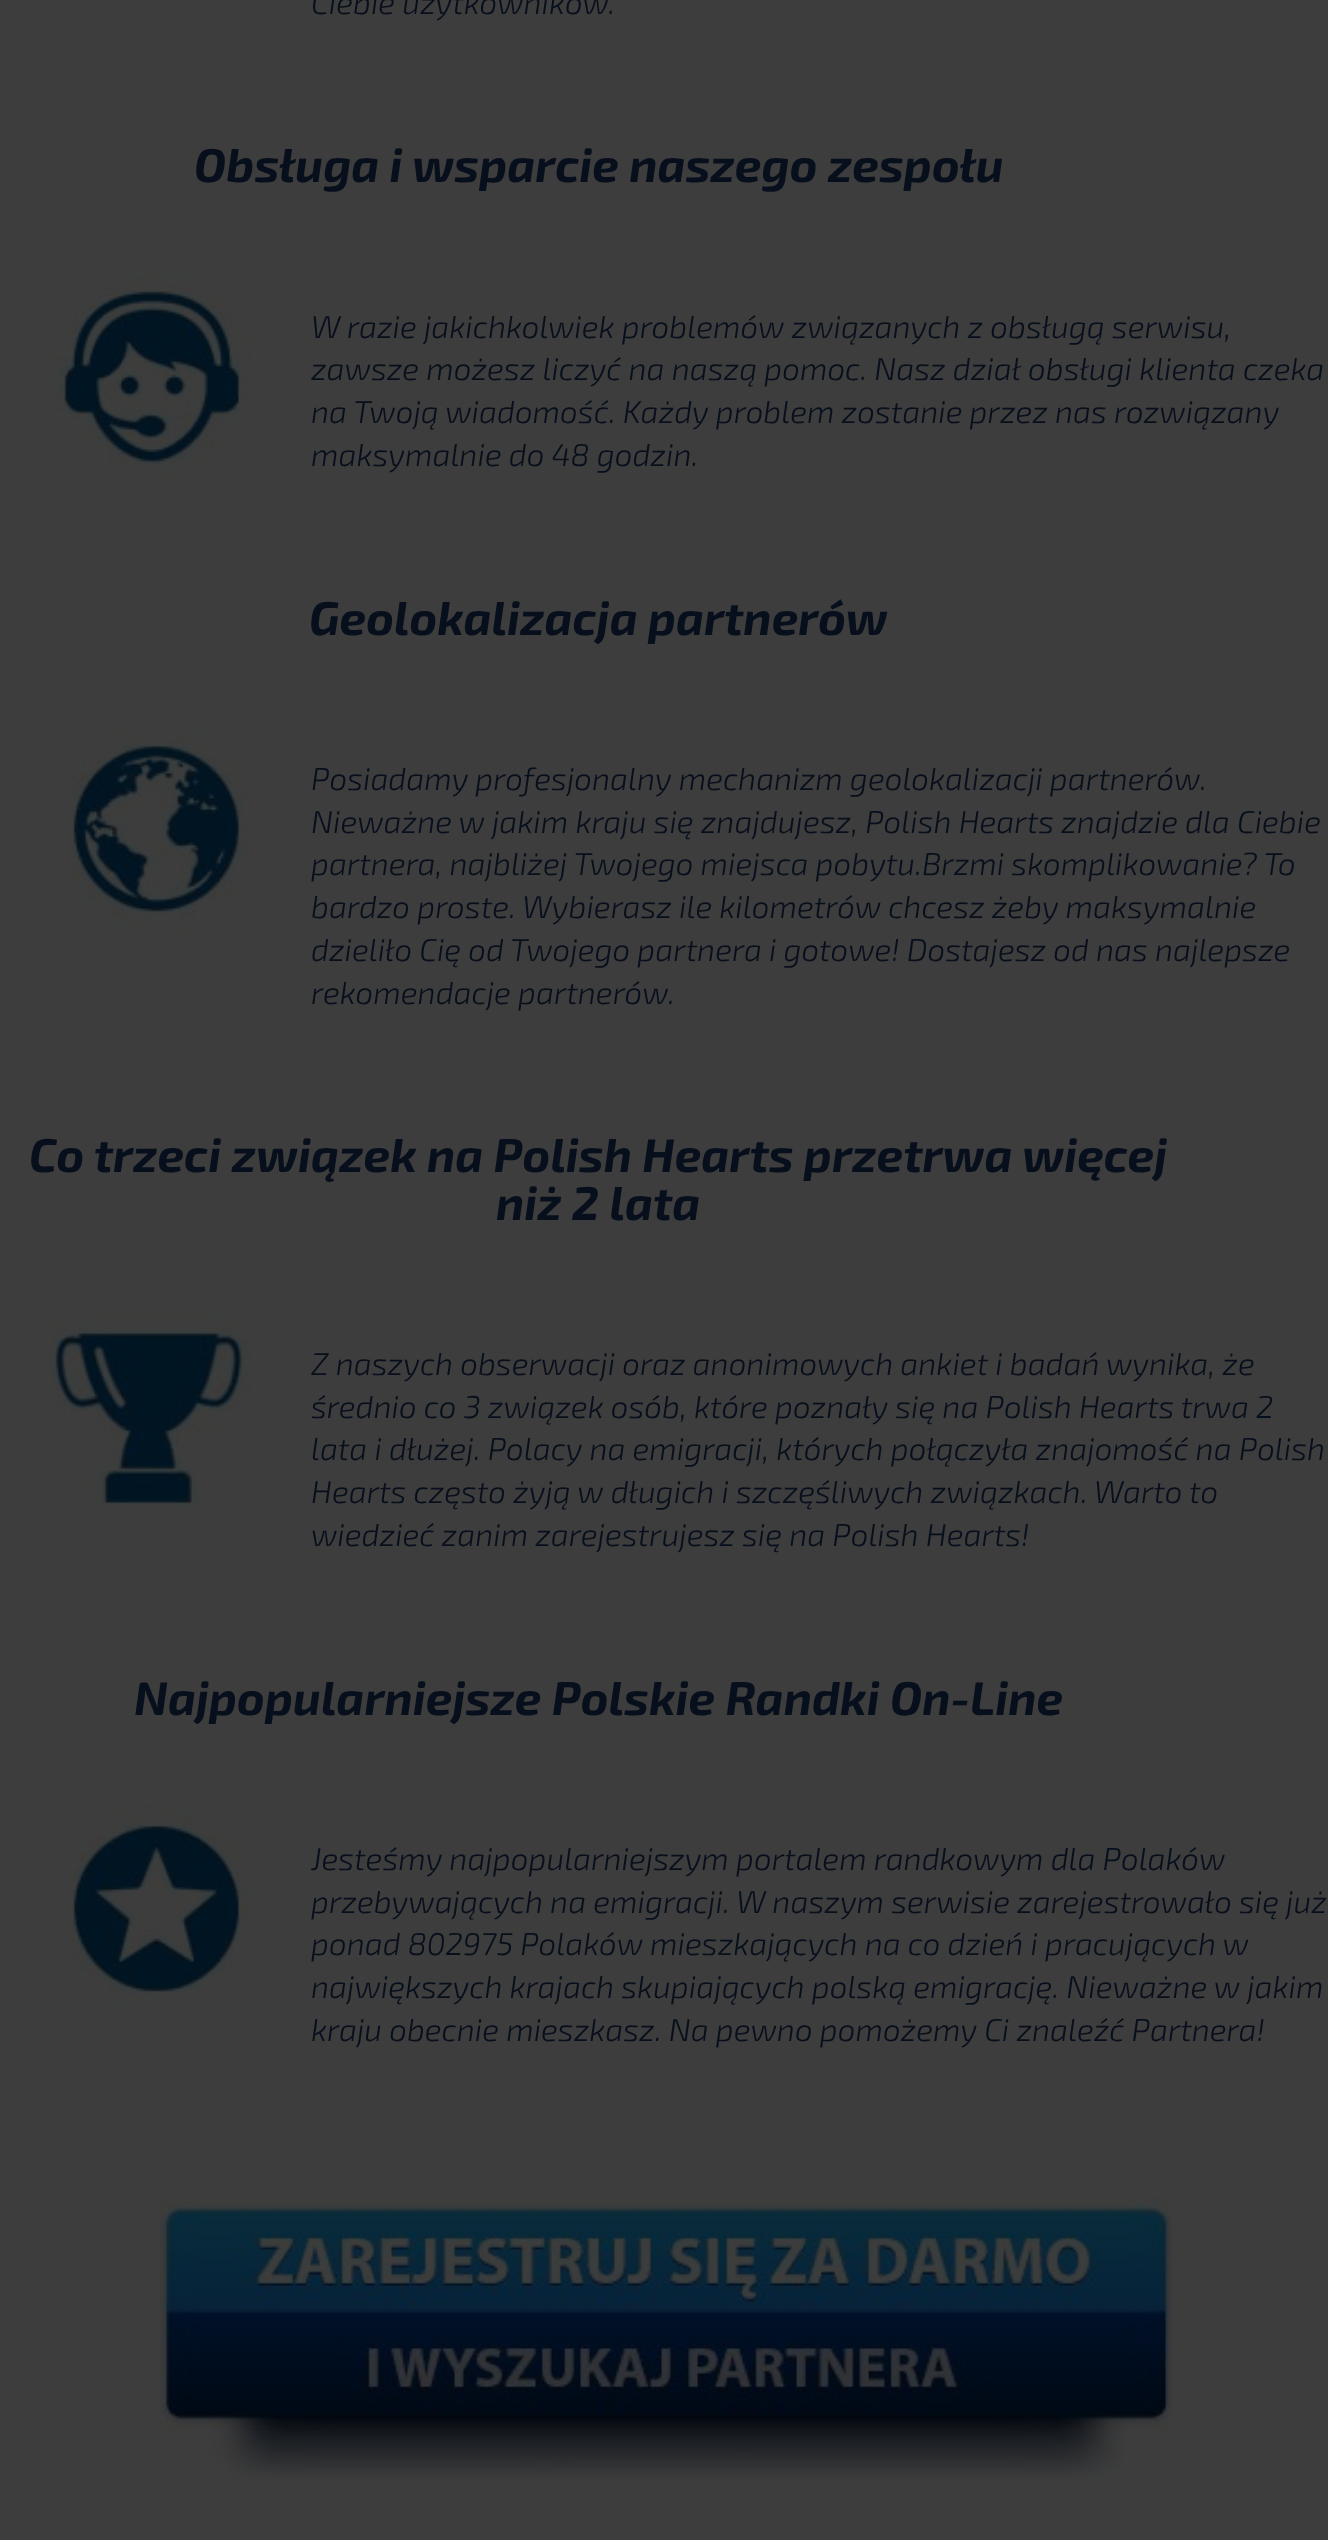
<svg xmlns="http://www.w3.org/2000/svg" width="1328" height="2540" viewBox="0 0 1328 2540">
  <style>
    .t1 { font: italic 300 31.5px 'Exo 2'; fill: #070f1c; }
    .t2 { font: italic bold 47.25px 'Exo 2'; fill: #070f1c; }
  </style>
  <rect width="100%" height="100%" fill="#3d3d3d"/>
  <text x="311" y="14" class="t1">Ciebie użytkowników.</text>
  <text x="194" y="182" class="t2">Obsługa i wsparcie naszego zespołu</text>
  <image x="36" y="267" width="217" height="217" href="images/1.png"/>
  <text x="311" y="338" class="t1">W razie jakichkolwiek problemów związanych z obsługą serwisu,</text>
  <text x="311" y="380" class="t1">zawsze możesz liczyć na naszą pomoc. Nasz dział obsługi klienta czeka</text>
  <text x="311" y="423" class="t1">na Twoją wiadomość. Każdy problem zostanie przez nas rozwiązany</text>
  <text x="311" y="466" class="t1">maksymalnie do 48 godzin.</text>
  <text x="309" y="635" class="t2">Geolokalizacja partnerów</text>
  <image x="70" y="719" width="183" height="217" href="images/2.png"/>
  <text x="311" y="790" class="t1">Posiadamy profesjonalny mechanizm geolokalizacji partnerów.</text>
  <text x="311" y="833" class="t1">Nieważne w jakim kraju się znajdujesz, Polish Hearts znajdzie dla Ciebie</text>
  <text x="311" y="875" class="t1">partnera, najbliżej Twojego miejsca pobytu.Brzmi skomplikowanie? To</text>
  <text x="311" y="918" class="t1">bardzo proste. Wybierasz ile kilometrów chcesz żeby maksymalnie</text>
  <text x="311" y="961" class="t1">dzieliło Cię od Twojego partnera i gotowe! Dostajesz od nas najlepsze</text>
  <text x="311" y="1004" class="t1">rekomendacje partnerów.</text>
  <text x="29" y="1172" class="t2">Co trzeci związek na Polish Hearts przetrwa więcej</text>
  <text x="496" y="1220" class="t2">niż 2 lata</text>
  <image x="36" y="1304" width="217" height="217" href="images/3.png"/>
  <text x="311" y="1375" class="t1">Z naszych obserwacji oraz anonimowych ankiet i badań wynika, że</text>
  <text x="311" y="1418" class="t1">średnio co 3 związek osób, które poznały się na Polish Hearts trwa 2</text>
  <text x="311" y="1460" class="t1">lata i dłużej. Polacy na emigracji, których połączyła znajomość na Polish</text>
  <text x="311" y="1503" class="t1">Hearts często żyją w długich i szczęśliwych związkach. Warto to</text>
  <text x="311" y="1546" class="t1">wiedzieć zanim zarejestrujesz się na Polish Hearts!</text>
  <text x="134" y="1715" class="t2">Najpopularniejsze Polskie Randki On-Line</text>
  <image x="70" y="1799" width="183" height="217" href="images/4.png"/>
  <text x="311" y="1870" class="t1">Jesteśmy najpopularniejszym portalem randkowym dla Polaków</text>
  <text x="311" y="1913" class="t1">przebywających na emigracji. W naszym serwisie zarejestrowało się już</text>
  <text x="311" y="1955" class="t1">ponad 802975 Polaków mieszkających na co dzień i pracujących w</text>
  <text x="311" y="1998" class="t1">największych krajach skupiających polską emigrację. Nieważne w jakim</text>
  <text x="311" y="2041" class="t1">kraju obecnie mieszkasz. Na pewno pomożemy Ci znaleźć Partnera!</text>
  <image x="159" y="2197" width="1013" height="288" href="images/5.png"/>
</svg>
